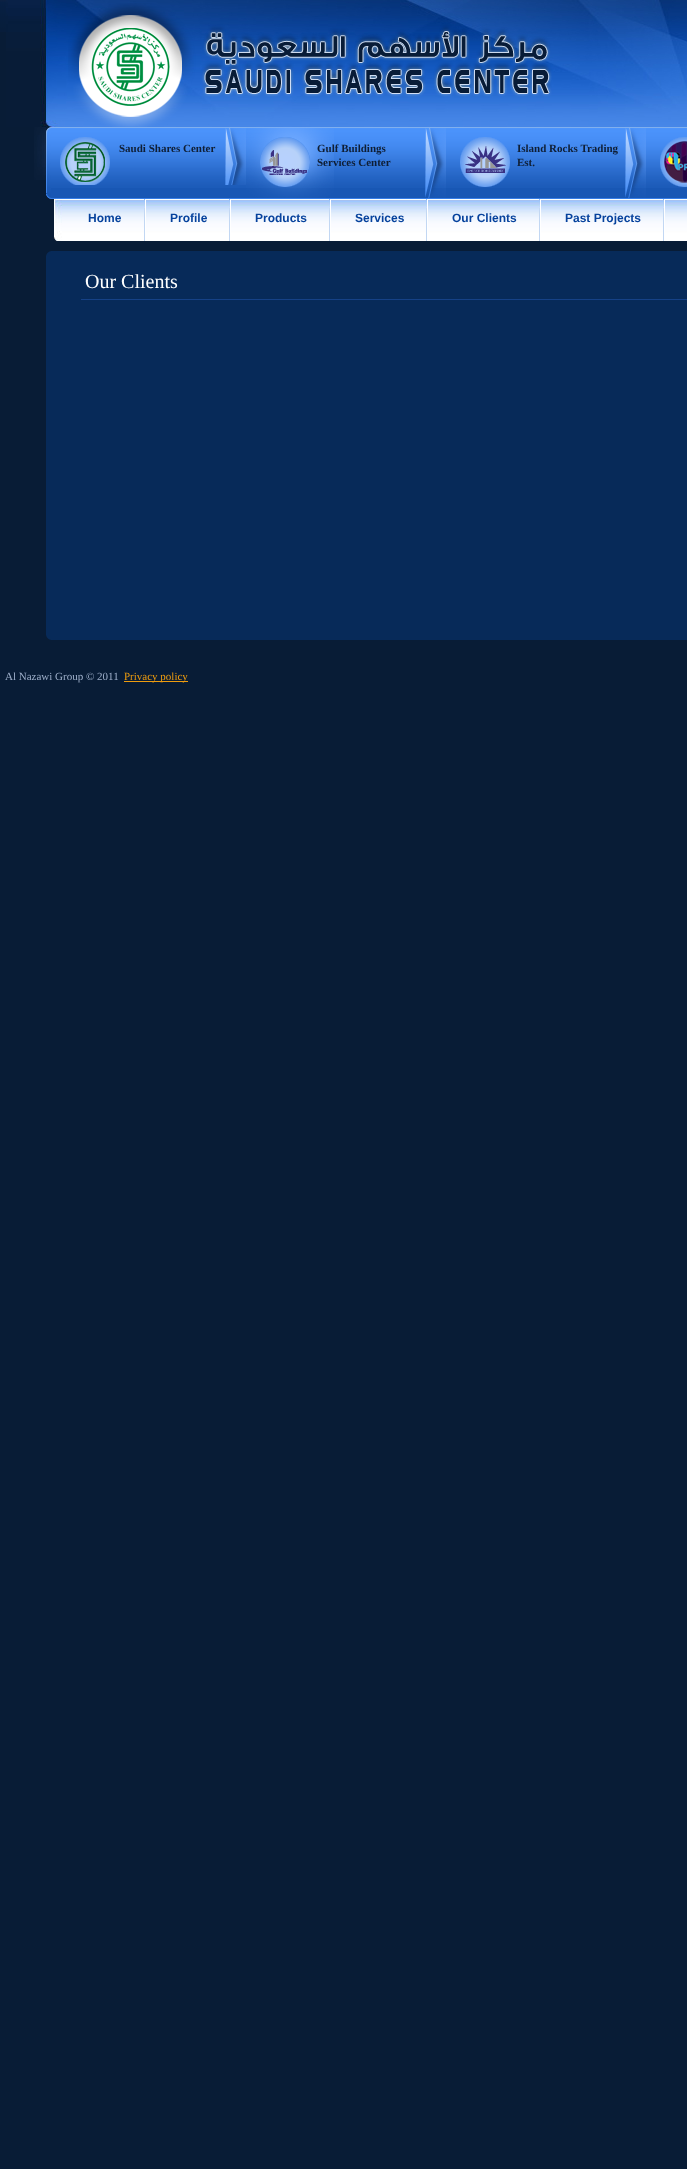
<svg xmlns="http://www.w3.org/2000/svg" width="687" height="2169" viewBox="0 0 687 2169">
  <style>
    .t1 { font: bold 11px Liberation Serif; fill: #0f1e34; }
    .t2 { font: bold 12px Liberation Sans; fill: #06429d; }
    .t3 { font: 20px Liberation Serif; fill: #fff; }
    .t4 { font: 11px Liberation Serif; fill: #9eafca; }
    .t5 { font: 11px Liberation Serif; fill: #ee9c0f; }
  </style>
  <rect width="100%" height="100%" fill="#081c36"/>
  <image x="0" y="0" width="6" height="32" href="images/1.png"/>
  <image x="6" y="0" width="681" height="127" href="images/2.png"/>
  <image x="68" y="3" width="484" height="124" href="images/3.png"/>
  <image x="34" y="127" width="12" height="53" href="images/4.png"/>
  <rect x="51" y="188" width="636" height="10" fill="#1857b4"/>
  <image x="51" y="127" width="636" height="61" href="images/5.png"/>
  <rect x="46" y="198" width="641" height="1" fill="#357de7"/>
  <rect x="46" y="193" width="5" height="6" fill="#1856b3"/>
  <image x="46" y="127" width="5" height="66" href="images/6.png"/>
  <image x="46" y="194" width="5" height="5" href="images/7.png"/>
  <image x="60" y="137" width="50" height="48" href="images/8.png"/>
  <image x="225" y="128" width="21" height="57" href="images/9.png"/>
  <text x="119" y="152" class="t1">Saudi Shares Center</text>
  <image x="246" y="127" width="88" height="71" href="images/10.png"/>
  <image x="425" y="128" width="21" height="70" href="images/11.png"/>
  <text x="317" y="152" class="t1">Gulf Buildings</text>
  <text x="317" y="166" class="t1">Services Center</text>
  <image x="460" y="137" width="50" height="50" href="images/12.png"/>
  <image x="625" y="128" width="21" height="70" href="images/11.png"/>
  <text x="517" y="152" class="t1">Island Rocks Trading</text>
  <text x="517" y="166" class="t1">Est.</text>
  <image x="660" y="137" width="27" height="50" href="images/13.png"/>
  <image x="54" y="199" width="633" height="42" href="images/14.png"/>
  <image x="144" y="199" width="2" height="42" href="images/15.png"/>
  <text x="88" y="222" class="t2">Home</text>
  <image x="229" y="199" width="2" height="42" href="images/15.png"/>
  <text x="170" y="222" class="t2">Profile</text>
  <image x="329" y="199" width="2" height="42" href="images/15.png"/>
  <text x="255" y="222" class="t2">Products</text>
  <image x="426" y="199" width="2" height="42" href="images/15.png"/>
  <text x="355" y="222" class="t2">Services</text>
  <image x="539" y="199" width="2" height="42" href="images/15.png"/>
  <text x="452" y="222" class="t2">Our Clients</text>
  <image x="663" y="199" width="2" height="42" href="images/15.png"/>
  <text x="565" y="222" class="t2">Past Projects</text>
  <rect x="46" y="251" width="641" height="389" fill="#072a59"/>
  <image x="46" y="251" width="5" height="5" href="images/16.png"/>
  <image x="46" y="635" width="5" height="5" href="images/17.png"/>
  <rect x="81" y="299" width="606" height="1" fill="#154186"/>
  <text x="85" y="288" class="t3">Our Clients</text>
  <text x="5" y="680" class="t4">Al Nazawi Group © 2011</text>
  <rect x="124" y="681" width="64" height="1" fill="#ee9c0f"/>
  <text x="124" y="680" class="t5">Privacy policy</text>
</svg>
